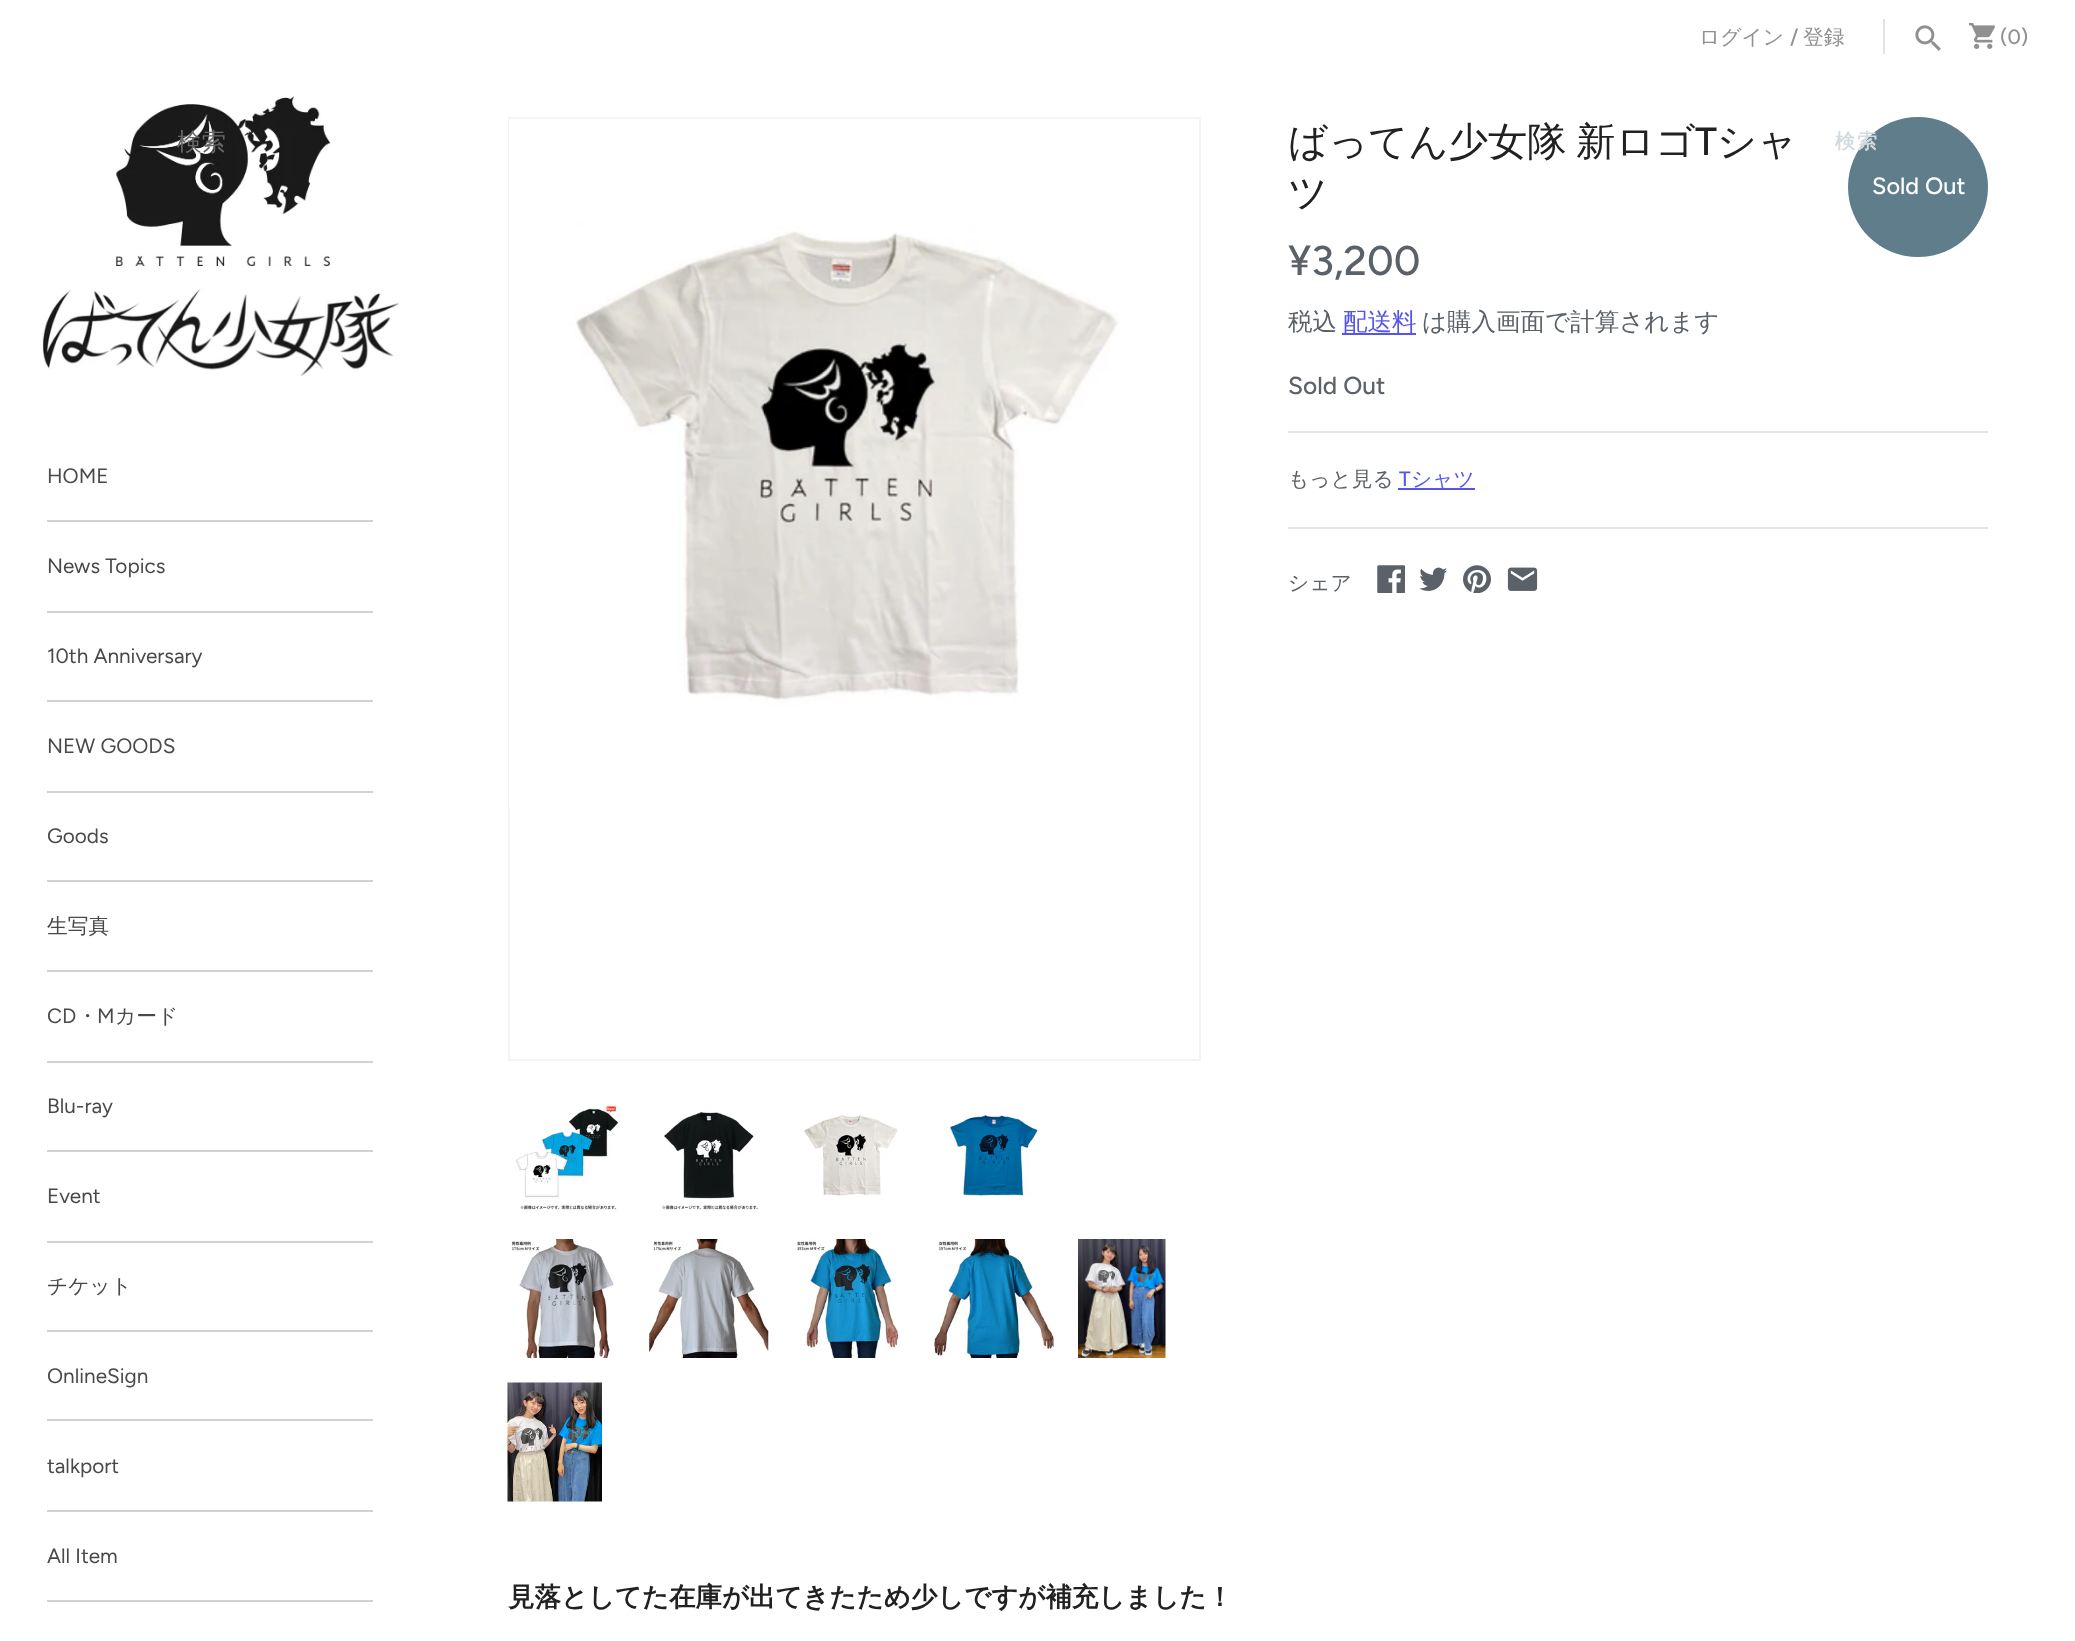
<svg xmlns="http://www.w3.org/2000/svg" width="2075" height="1641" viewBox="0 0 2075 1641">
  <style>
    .t1 { font: 500 20.75px WenQuanYi Zen Hei; fill: #909090; }
    .t2 { font: 500 20.75px Figtree; fill: #909090; }
    .t3 { font: 500 24.5px WenQuanYi Zen Hei; fill: #686868; }
    .t4 { font: bold 20px WenQuanYi Zen Hei; letter-spacing: 2px; fill: #d4dbdf; }
    .t5 { font: 20.75px Figtree; fill: #494949; }
    .t6 { font: 500 20.75px WenQuanYi Zen Hei; fill: #494949; }
    .t7 { font: 500 39.25px WenQuanYi Zen Hei; fill: #212121; }
    .t8 { font: 500 39.25px Figtree; fill: #212121; }
    .t9 { font: 500 23.5px Figtree; fill: #fff; }
    .t10 { font: 500 41.5px Figtree; fill: #5b6169; }
    .t11 { font: 500 24.5px WenQuanYi Zen Hei; fill: #5b6169; }
    .t12 { font: 500 24.5px WenQuanYi Zen Hei; fill: #55e; }
    .t13 { font: 500 24.5px Figtree; fill: #5b6169; }
    .t14 { font: 500 20.75px WenQuanYi Zen Hei; fill: #5b6169; }
    .t15 { font: 500 20.75px Figtree; fill: #55e; }
    .t16 { font: 500 20.75px WenQuanYi Zen Hei; fill: #55e; }
    .t17 { font: bold 26.45px WenQuanYi Zen Hei; fill: #212121; }
  </style>
  <rect width="100%" height="100%" fill="#fff"/>
  <text x="1699" y="44" class="t1">ログイン</text>
  <text x="1790" y="44" class="t2">/</text>
  <text x="1803" y="44" class="t1">登録</text>
  <rect x="1883" y="19" width="2" height="35" fill="#e3e3e3"/>
  <image x="1915" y="25" width="26" height="26" href="images/1.png"/>
  <image x="1969" y="23" width="26" height="26" href="images/2.png"/>
  <text x="2000" y="44" class="t2">(0)</text>
  <image x="42" y="96" width="357" height="280" href="images/3.png"/>
  <text x="177" y="150" class="t3">検索</text>
  <circle cx="1918" cy="187" r="70" fill="#607d8b"/>
  <text x="1835" y="148" class="t4">検索</text>
  <rect x="47" y="520" width="326" height="2" fill="#d2d2d2"/>
  <text x="47" y="483" class="t5">HOME</text>
  <rect x="47" y="611" width="326" height="2" fill="#d2d2d2"/>
  <text x="47" y="573" class="t5">News Topics</text>
  <rect x="47" y="700" width="326" height="2" fill="#d2d2d2"/>
  <text x="47" y="663" class="t5">10th Anniversary</text>
  <rect x="47" y="791" width="326" height="2" fill="#d2d2d2"/>
  <text x="47" y="753" class="t5">NEW GOODS</text>
  <rect x="47" y="880" width="326" height="2" fill="#d2d2d2"/>
  <text x="47" y="843" class="t5">Goods</text>
  <rect x="47" y="970" width="326" height="2" fill="#d2d2d2"/>
  <text x="47" y="933" class="t6">生写真</text>
  <rect x="47" y="1061" width="326" height="2" fill="#d2d2d2"/>
  <text x="47" y="1023" class="t5">CD</text>
  <text x="77" y="1023" class="t6">・</text>
  <text x="97" y="1023" class="t5">M</text>
  <text x="115" y="1023" class="t6">カード</text>
  <rect x="47" y="1150" width="326" height="2" fill="#d2d2d2"/>
  <text x="47" y="1113" class="t5">Blu-ray</text>
  <rect x="47" y="1241" width="326" height="2" fill="#d2d2d2"/>
  <text x="47" y="1203" class="t5">Event</text>
  <rect x="47" y="1330" width="326" height="2" fill="#d2d2d2"/>
  <text x="47" y="1293" class="t6">チケット</text>
  <rect x="47" y="1419" width="326" height="2" fill="#d2d2d2"/>
  <text x="47" y="1383" class="t5">OnlineSign</text>
  <rect x="47" y="1510" width="326" height="2" fill="#d2d2d2"/>
  <text x="47" y="1473" class="t5">talkport</text>
  <rect x="47" y="1600" width="326" height="2" fill="#d2d2d2"/>
  <text x="47" y="1563" class="t5">All Item</text>
  <rect x="509" y="118" width="691" height="942" fill="none" stroke="#f4f4f4" stroke-width="2"/>
  <image x="509" y="119" width="610" height="690" href="images/4.png"/>
  <image x="515" y="1105" width="104" height="107" href="images/5.png"/>
  <image x="662" y="1111" width="97" height="101" href="images/6.png"/>
  <image x="804" y="1114" width="94" height="82" href="images/7.png"/>
  <image x="950" y="1114" width="90" height="83" href="images/8.png"/>
  <image x="511" y="1239" width="103" height="119" href="images/9.png"/>
  <image x="649" y="1239" width="120" height="119" href="images/10.png"/>
  <image x="796" y="1239" width="103" height="119" href="images/11.png"/>
  <image x="934" y="1239" width="120" height="119" href="images/12.png"/>
  <image x="1078" y="1239" width="88" height="119" href="images/13.png"/>
  <image x="507" y="1382" width="95" height="120" href="images/14.png"/>
  <text x="1288" y="155" word-spacing="-2" class="t7">ばってん少女隊 新ロゴ</text>
  <text x="1695" y="155" class="t8">T</text>
  <text x="1717" y="155" class="t7">シャ</text>
  <text x="1288" y="206" class="t7">ツ</text>
  <text x="1872" y="194" class="t9">Sold Out</text>
  <text x="1288" y="275" class="t10">¥3,200</text>
  <text x="1288" y="330" class="t11">税込</text>
  <rect x="1342" y="333" width="74" height="2" fill="#55e"/>
  <text x="1343" y="330" class="t12">配送料</text>
  <text x="1422" y="330" class="t11">は購入画面で計算されます</text>
  <text x="1288" y="394" class="t13">Sold Out</text>
  <rect x="1288" y="431" width="700" height="2" fill="#e3e3e3"/>
  <text x="1288" y="486" class="t14">もっと見る</text>
  <text x="1399" y="486" class="t15">T</text>
  <rect x="1398" y="488" width="77" height="2" fill="#55e"/>
  <text x="1411" y="486" class="t16">シャツ</text>
  <rect x="1288" y="527" width="700" height="2" fill="#e3e3e3"/>
  <text x="1288" y="590" class="t14">シェア</text>
  <image x="1377" y="565" width="28" height="28" href="images/15.png"/>
  <image x="1419" y="567" width="28" height="24" href="images/16.png"/>
  <image x="1463" y="565" width="28" height="28" href="images/17.png"/>
  <image x="1507" y="567" width="31" height="24" href="images/18.png"/>
  <text x="508" y="1606" class="t17">見落としてた在庫が出てきたため少しですが補充しました！</text>
</svg>
